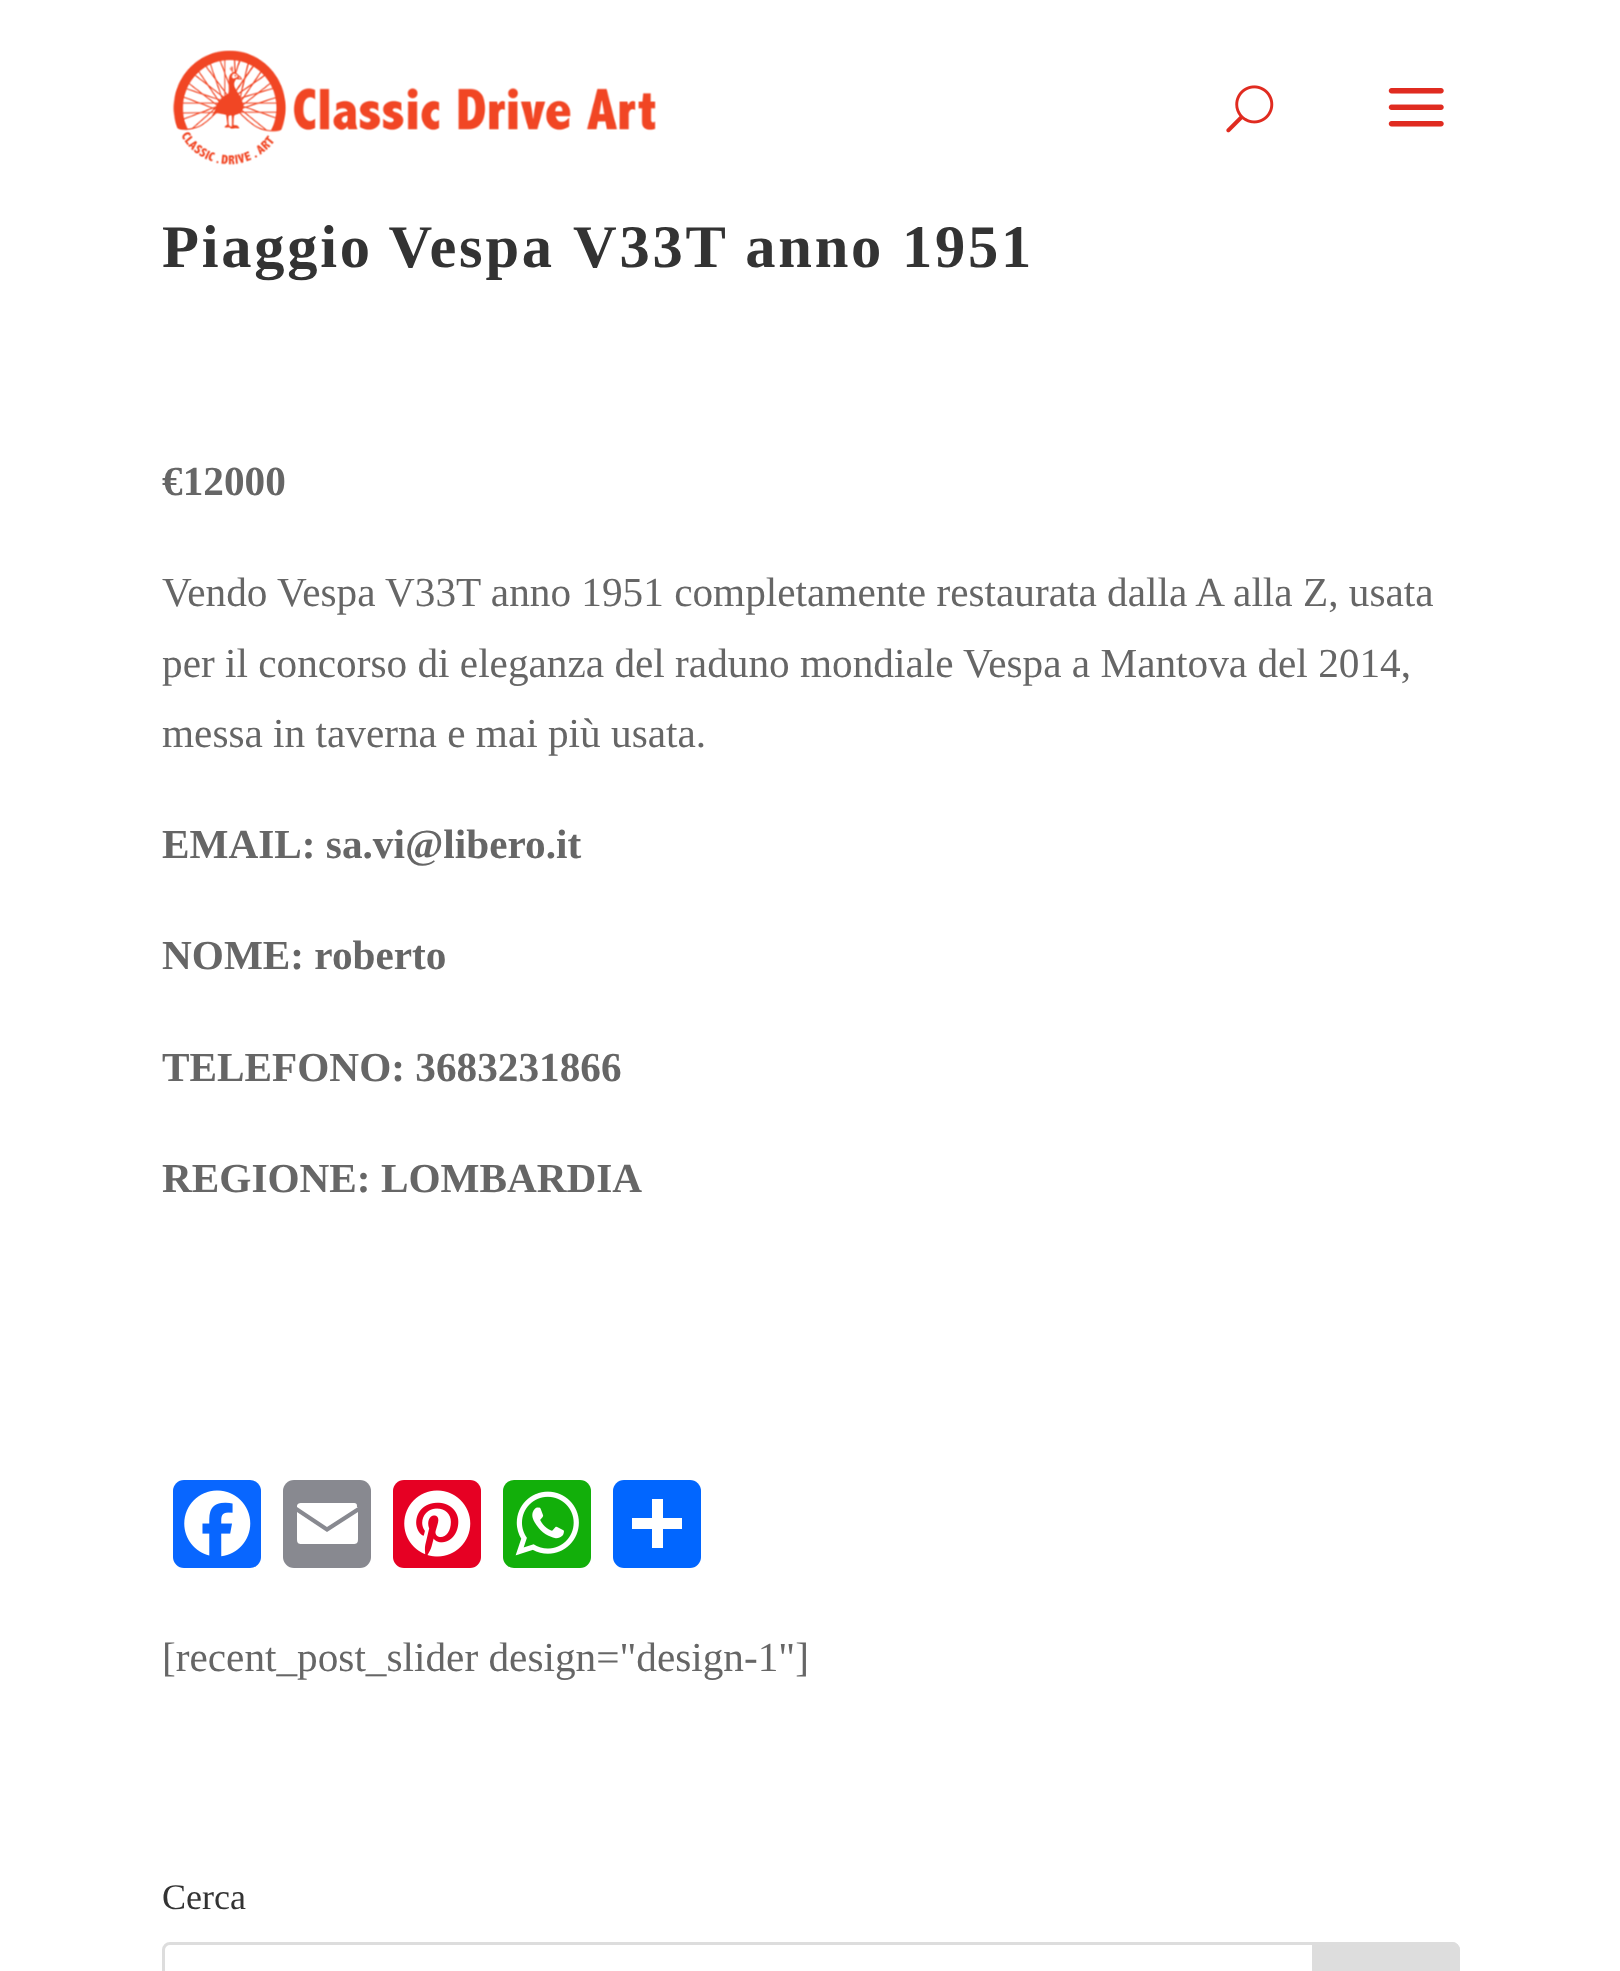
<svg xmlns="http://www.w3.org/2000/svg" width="1620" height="1971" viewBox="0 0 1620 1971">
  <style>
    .t1 { font: bold 60.5px Liberation Serif; letter-spacing: 2.75px; fill: #333; }
    .t2 { font: bold 41.25px Liberation Serif; fill: #666; }
    .t3 { font: 41.25px Liberation Serif; fill: #666; }
    .t4 { font: 36px Liberation Serif; fill: #333; }
  </style>
  <rect width="100%" height="100%" fill="#fff"/>
  <image x="172" y="50" width="484" height="116" href="images/1.png"/>
  <image x="1226" y="85" width="48" height="48" href="images/2.png"/>
  <image x="1388" y="88" width="56" height="39" href="images/3.png"/>
  <text x="162" y="267" word-spacing="-1" class="t1">Piaggio Vespa</text>
  <text x="573" y="267" class="t1">V33T anno 1951</text>
  <text x="162" y="495" class="t2">€12000</text>
  <text x="162" y="606" class="t3">Vendo Vespa V33T anno 1951 completamente restaurata dalla A alla Z, usata</text>
  <text x="162" y="677" class="t3">per il concorso di eleganza del raduno mondiale Vespa a Mantova del 2014,</text>
  <text x="162" y="747" class="t3">messa in taverna e mai più usata.</text>
  <text x="162" y="858" class="t2">EMAIL: sa.vi@libero.it</text>
  <text x="162" y="969" class="t2">NOME: roberto</text>
  <text x="162" y="1081" class="t2">TELEFONO: 3683231866</text>
  <text x="162" y="1192" class="t2">REGIONE: LOMBARDIA</text>
  <rect x="173" y="1480" width="88" height="88" rx="11" fill="#0866ff"/>
  <image x="184" y="1490" width="67" height="67" href="images/4.png"/>
  <rect x="283" y="1480" width="88" height="88" rx="11" fill="#888990"/>
  <path d="M358 1539V1512L327 1532L297 1512V1539C297 1543 298 1544 302 1544H353C357 1544 358 1543 358 1539M357 1507C357 1504 357 1503 353 1503H302C298 1503 297 1504 297 1507L327 1527L358 1507Z" fill="#fff"/>
  <rect x="393" y="1480" width="88" height="88" rx="11" fill="#e60023"/>
  <image x="404" y="1490" width="67" height="67" href="images/5.png"/>
  <rect x="503" y="1480" width="88" height="88" rx="11" fill="#12af0a"/>
  <image x="515" y="1491" width="64" height="65" href="images/6.png"/>
  <rect x="613" y="1480" width="88" height="88" rx="11" fill="#0166ff"/>
  <rect x="652" y="1499" width="11" height="49" fill="#fff"/>
  <rect x="632" y="1518" width="50" height="11" fill="#fff"/>
  <text x="162" y="1671" class="t3">[recent_post_slider design="design-1"]</text>
  <text x="162" y="1909" class="t4">Cerca</text>
  <rect x="163.5" y="1943.5" width="1295" height="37" rx="6.5" fill="none" stroke="#ddd" stroke-width="3"/>
  <path d="M1313.5 1943.5H1452C1455.5 1943.5 1458.5 1946.5 1458.5 1950V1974C1458.5 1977.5 1455.5 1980.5 1452 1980.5H1313.5Z" fill="#ddd" stroke="#ddd" stroke-width="3"/>
</svg>
